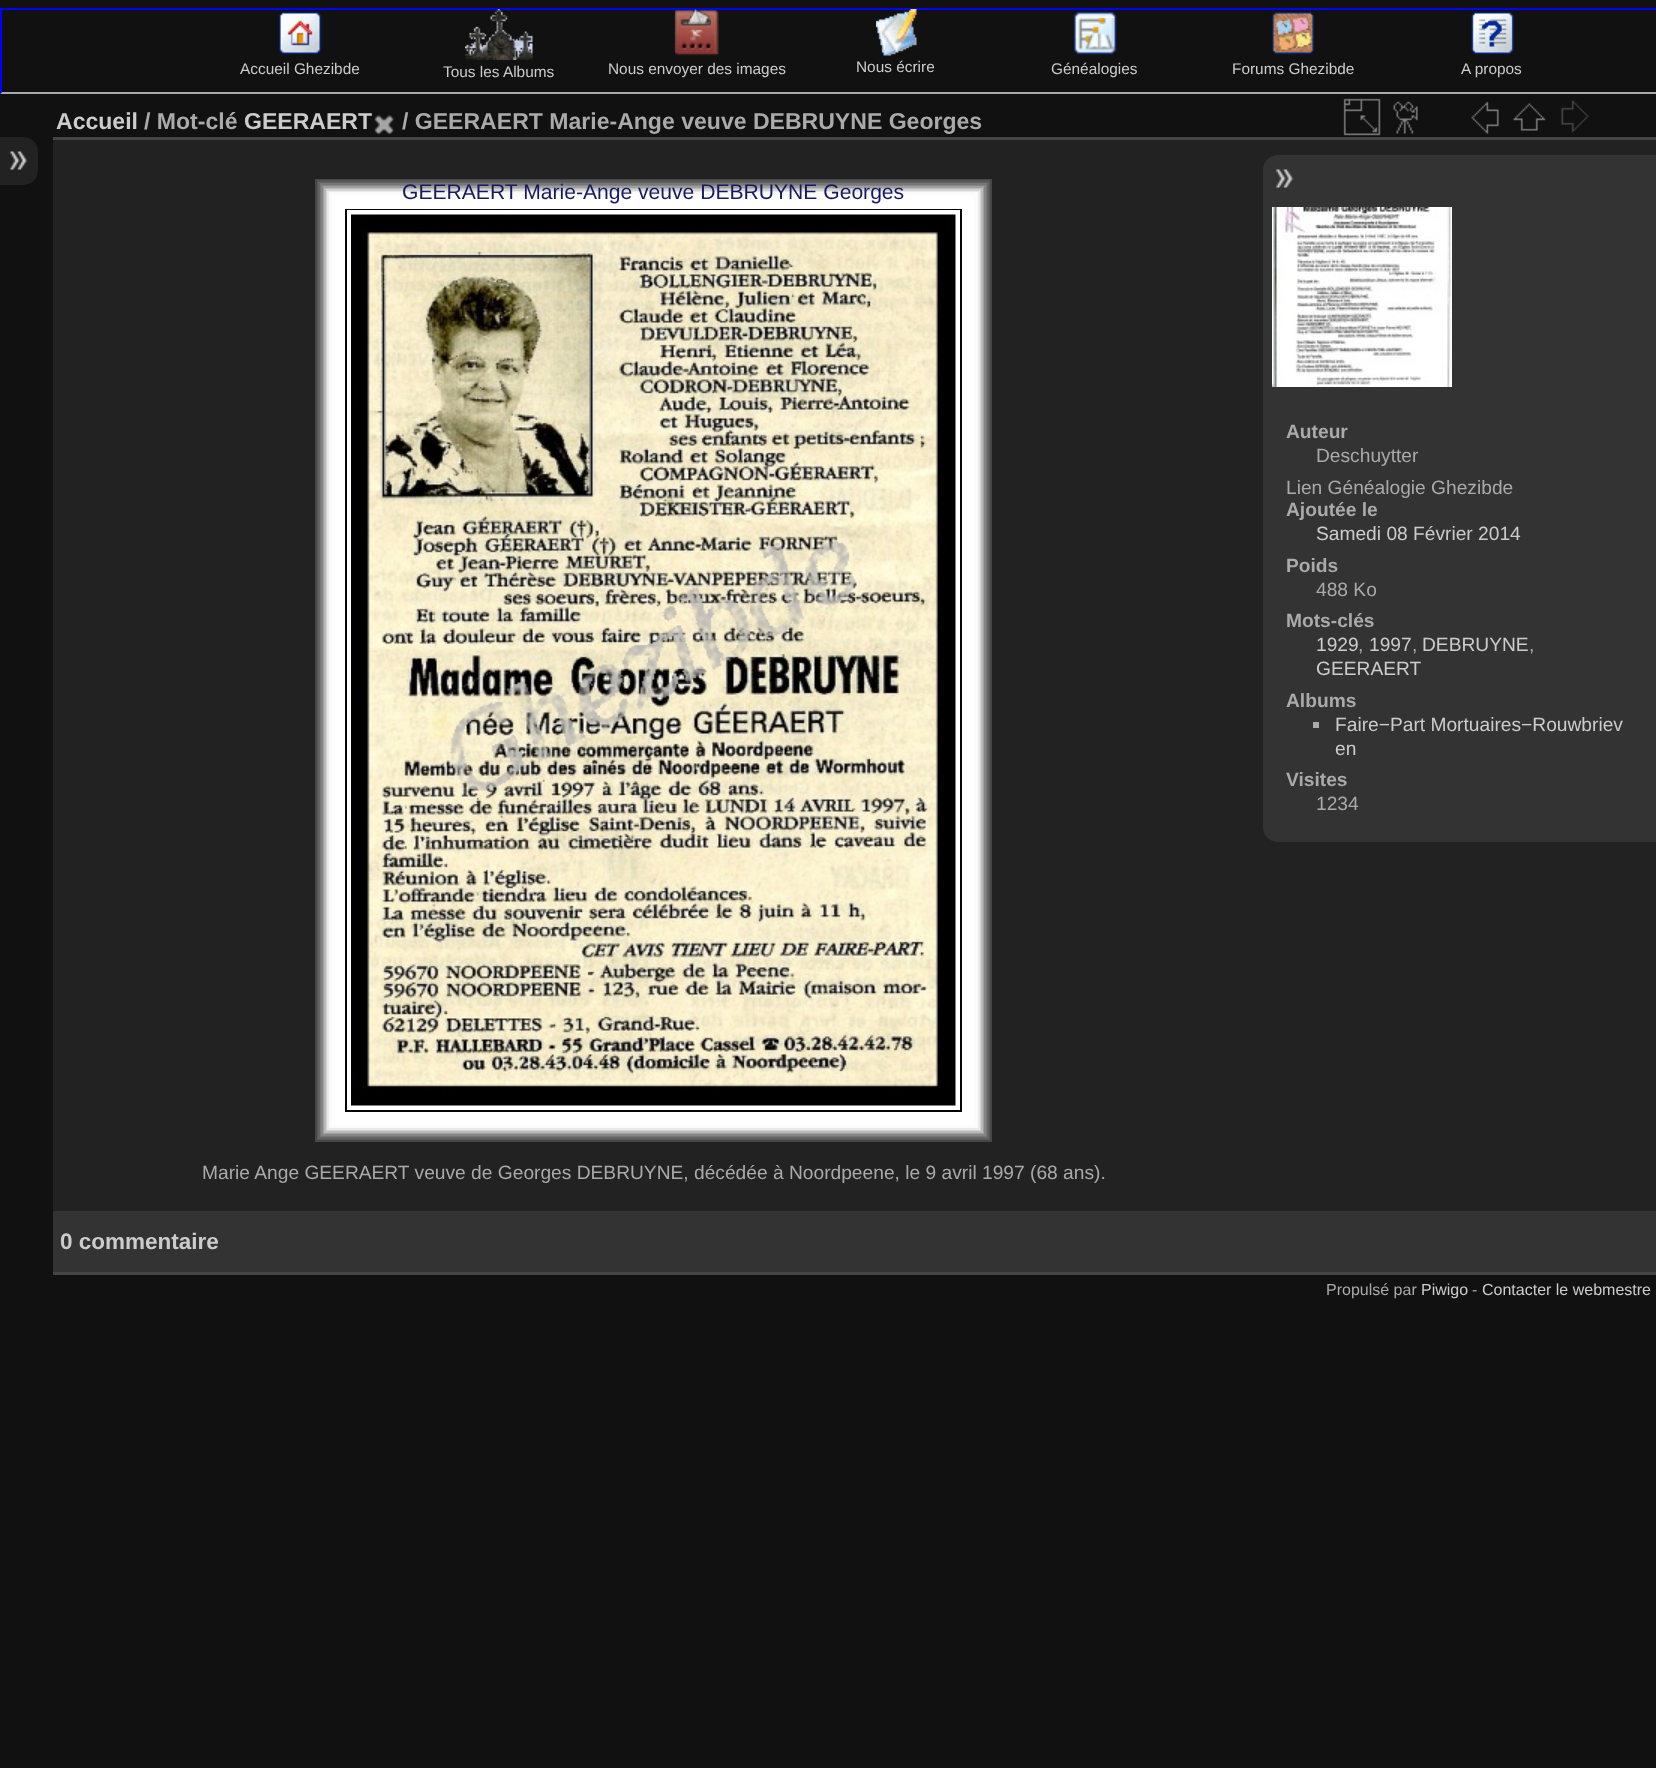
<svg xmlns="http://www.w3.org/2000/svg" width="1656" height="1768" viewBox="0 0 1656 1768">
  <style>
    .t1 { font: 15.4px Liberation Sans; fill: #ccc; }
    .t2 { font: bold 23.05px Liberation Sans; fill: #ccc; }
    .t3 { font: bold 23.05px Liberation Sans; fill: #aaa; }
    .t4 { font: 21.1px Liberation Sans; fill: #16195f; }
    .t5 { font: 19.2px Liberation Sans; fill: #aaa; }
    .t6 { font: bold 19.2px Liberation Sans; fill: #aaa; }
    .t7 { font: 19.2px Liberation Sans; fill: #ccc; }
    .t8 { font: bold 22.5px Liberation Sans; fill: #ccc; }
    .t9 { font: 16px Liberation Sans; fill: #aaa; }
    .t10 { font: 16px Liberation Sans; fill: #ccc; }
  </style>
  <rect width="100%" height="100%" fill="#111"/>
  <rect x="0" y="8" width="1656" height="2" fill="#00f"/>
  <path d="M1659 94H0L2 92H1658Z" fill="#aaa"/>
  <path d="M0 94V8L2 9V92Z" fill="#00f"/>
  <image x="278" y="11" width="44" height="44" href="images/1.png"/>
  <text x="240" y="74" class="t1">Accueil Ghezibde</text>
  <image x="465" y="9" width="68" height="51" href="images/2.png"/>
  <text x="443" y="77" class="t1">Tous les Albums</text>
  <image x="674" y="9" width="45" height="47" href="images/3.png"/>
  <text x="608" y="74" class="t1">Nous envoyer des images</text>
  <image x="876" y="9" width="41" height="47" href="images/4.png"/>
  <text x="856" y="72" class="t1">Nous écrire</text>
  <image x="1073" y="11" width="44" height="44" href="images/5.png"/>
  <text x="1051" y="74" class="t1">Généalogies</text>
  <image x="1271" y="11" width="44" height="44" href="images/6.png"/>
  <text x="1232" y="74" class="t1">Forums Ghezibde</text>
  <image x="1471" y="11" width="43" height="44" href="images/7.png"/>
  <text x="1461" y="74" class="t1">A propos</text>
  <path d="M0 137H23C31.5 137 38 143.5 38 152V170C38 178.5 31.5 185 23 185H0Z" fill="#222"/>
  <image x="9" y="151" width="19" height="19" href="images/8.png"/>
  <rect x="53" y="140" width="1603" height="1071" fill="#222"/>
  <rect x="53" y="1272" width="1603" height="3" fill="#444"/>
  <rect x="53" y="137" width="1603" height="3" fill="#444"/>
  <text x="56" y="129" class="t2">Accueil</text>
  <text x="144" y="129" class="t3">/ Mot-clé</text>
  <text x="244" y="129" class="t2">GEERAERT</text>
  <image x="374" y="115" width="20" height="20" href="images/9.png"/>
  <text x="402" y="129" class="t3">/ GEERAERT Marie-Ange veuve DEBRUYNE Georges</text>
  <image x="1343" y="98" width="38" height="38" href="images/10.png"/>
  <image x="1393" y="101" width="25" height="33" href="images/11.png"/>
  <image x="1471" y="101" width="28" height="33" href="images/12.png"/>
  <image x="1513" y="103" width="33" height="28" href="images/13.png"/>
  <image x="1561" y="100" width="28" height="33" href="images/14.png"/>
  <path d="M1278 155H1656V842H1278C1269.5 842 1263 835.5 1263 827V170C1263 161.5 1269.5 155 1278 155Z" fill="#333"/>
  <image x="1275" y="169" width="19" height="19" href="images/15.png"/>
  <rect x="316" y="180" width="675" height="961" fill="none" stroke="#474747" stroke-width="2"/>
  <rect x="318" y="181" width="671" height="958" fill="none" stroke="#575757" stroke-width="2"/>
  <rect x="319" y="183" width="669" height="955" fill="none" stroke="#646464" stroke-width="2"/>
  <rect x="321" y="184" width="665" height="952" fill="none" stroke="#777" stroke-width="2"/>
  <rect x="322" y="186" width="663" height="949" fill="none" stroke="#858585" stroke-width="2"/>
  <rect x="324" y="187" width="659" height="946" fill="none" stroke="#9f9f9f" stroke-width="2"/>
  <rect x="325" y="189" width="657" height="943" fill="none" stroke="#bababa" stroke-width="2"/>
  <rect x="327" y="190" width="653" height="940" fill="none" stroke="#d3d3d3" stroke-width="2"/>
  <rect x="328" y="192" width="651" height="937" fill="none" stroke="#eaeaea" stroke-width="2"/>
  <rect x="330" y="193" width="647" height="934" fill="none" stroke="#fafafa" stroke-width="2"/>
  <rect x="331" y="195" width="645" height="931" fill="none" stroke="#fcfcfc" stroke-width="2"/>
  <rect x="333" y="196" width="641" height="928" fill="none" stroke="#fdfdfd" stroke-width="2"/>
  <rect x="334" y="198" width="639" height="925" fill="none" stroke="#fff" stroke-width="2"/>
  <rect x="340.5" y="203.5" width="626" height="913" fill="none" stroke="#fff" stroke-width="11"/>
  <rect x="346" y="210" width="615" height="901" fill="none" stroke="#040404" stroke-width="2"/>
  <rect x="349.5" y="212.5" width="608" height="895" fill="none" stroke="#fff" stroke-width="5"/>
  <image x="351" y="214" width="605" height="892" href="images/16.png"/>
  <text x="402" y="199" class="t4">GEERAERT Marie-Ange veuve DEBRUYNE Georges</text>
  <text x="202" y="1179" class="t5">Marie Ange GEERAERT veuve de Georges DEBRUYNE, décédée à Noordpeene, le 9 avril 1997 (68 ans).</text>
  <image x="1272" y="207" width="180" height="180" href="images/17.png"/>
  <text x="1286" y="438" class="t6">Auteur</text>
  <text x="1316" y="462" class="t5">Deschuytter</text>
  <text x="1286" y="494" class="t5">Lien Généalogie Ghezibde</text>
  <text x="1286" y="516" class="t6">Ajoutée le</text>
  <text x="1316" y="540" class="t7">Samedi 08 Février 2014</text>
  <text x="1286" y="572" class="t6">Poids</text>
  <text x="1316" y="596" class="t5">488 Ko</text>
  <text x="1286" y="627" class="t6">Mots-clés</text>
  <text x="1316" y="651" class="t7">1929</text>
  <text x="1358" y="651" class="t5">,</text>
  <text x="1369" y="651" class="t7">1997</text>
  <text x="1412" y="651" class="t5">,</text>
  <text x="1422" y="651" class="t7">DEBRUYNE</text>
  <text x="1529" y="651" class="t5">,</text>
  <text x="1316" y="675" class="t7">GEERAERT</text>
  <text x="1286" y="707" class="t6">Albums</text>
  <rect x="1313" y="722" width="6" height="6" fill="#aaa"/>
  <text x="1335" y="731" class="t7">Faire−Part Mortuaires−Rouwbriev</text>
  <text x="1335" y="755" class="t7">en</text>
  <text x="1286" y="786" class="t6">Visites</text>
  <text x="1316" y="810" class="t5">1234</text>
  <rect x="53" y="1211" width="1603" height="61" fill="#333"/>
  <text x="60" y="1249" class="t8">0 commentaire</text>
  <text x="1326" y="1295" class="t9">Propulsé par</text>
  <text x="1421" y="1295" class="t10">Piwigo</text>
  <text x="1472" y="1295" class="t9">-</text>
  <text x="1482" y="1295" class="t10">Contacter le webmestre</text>
</svg>
